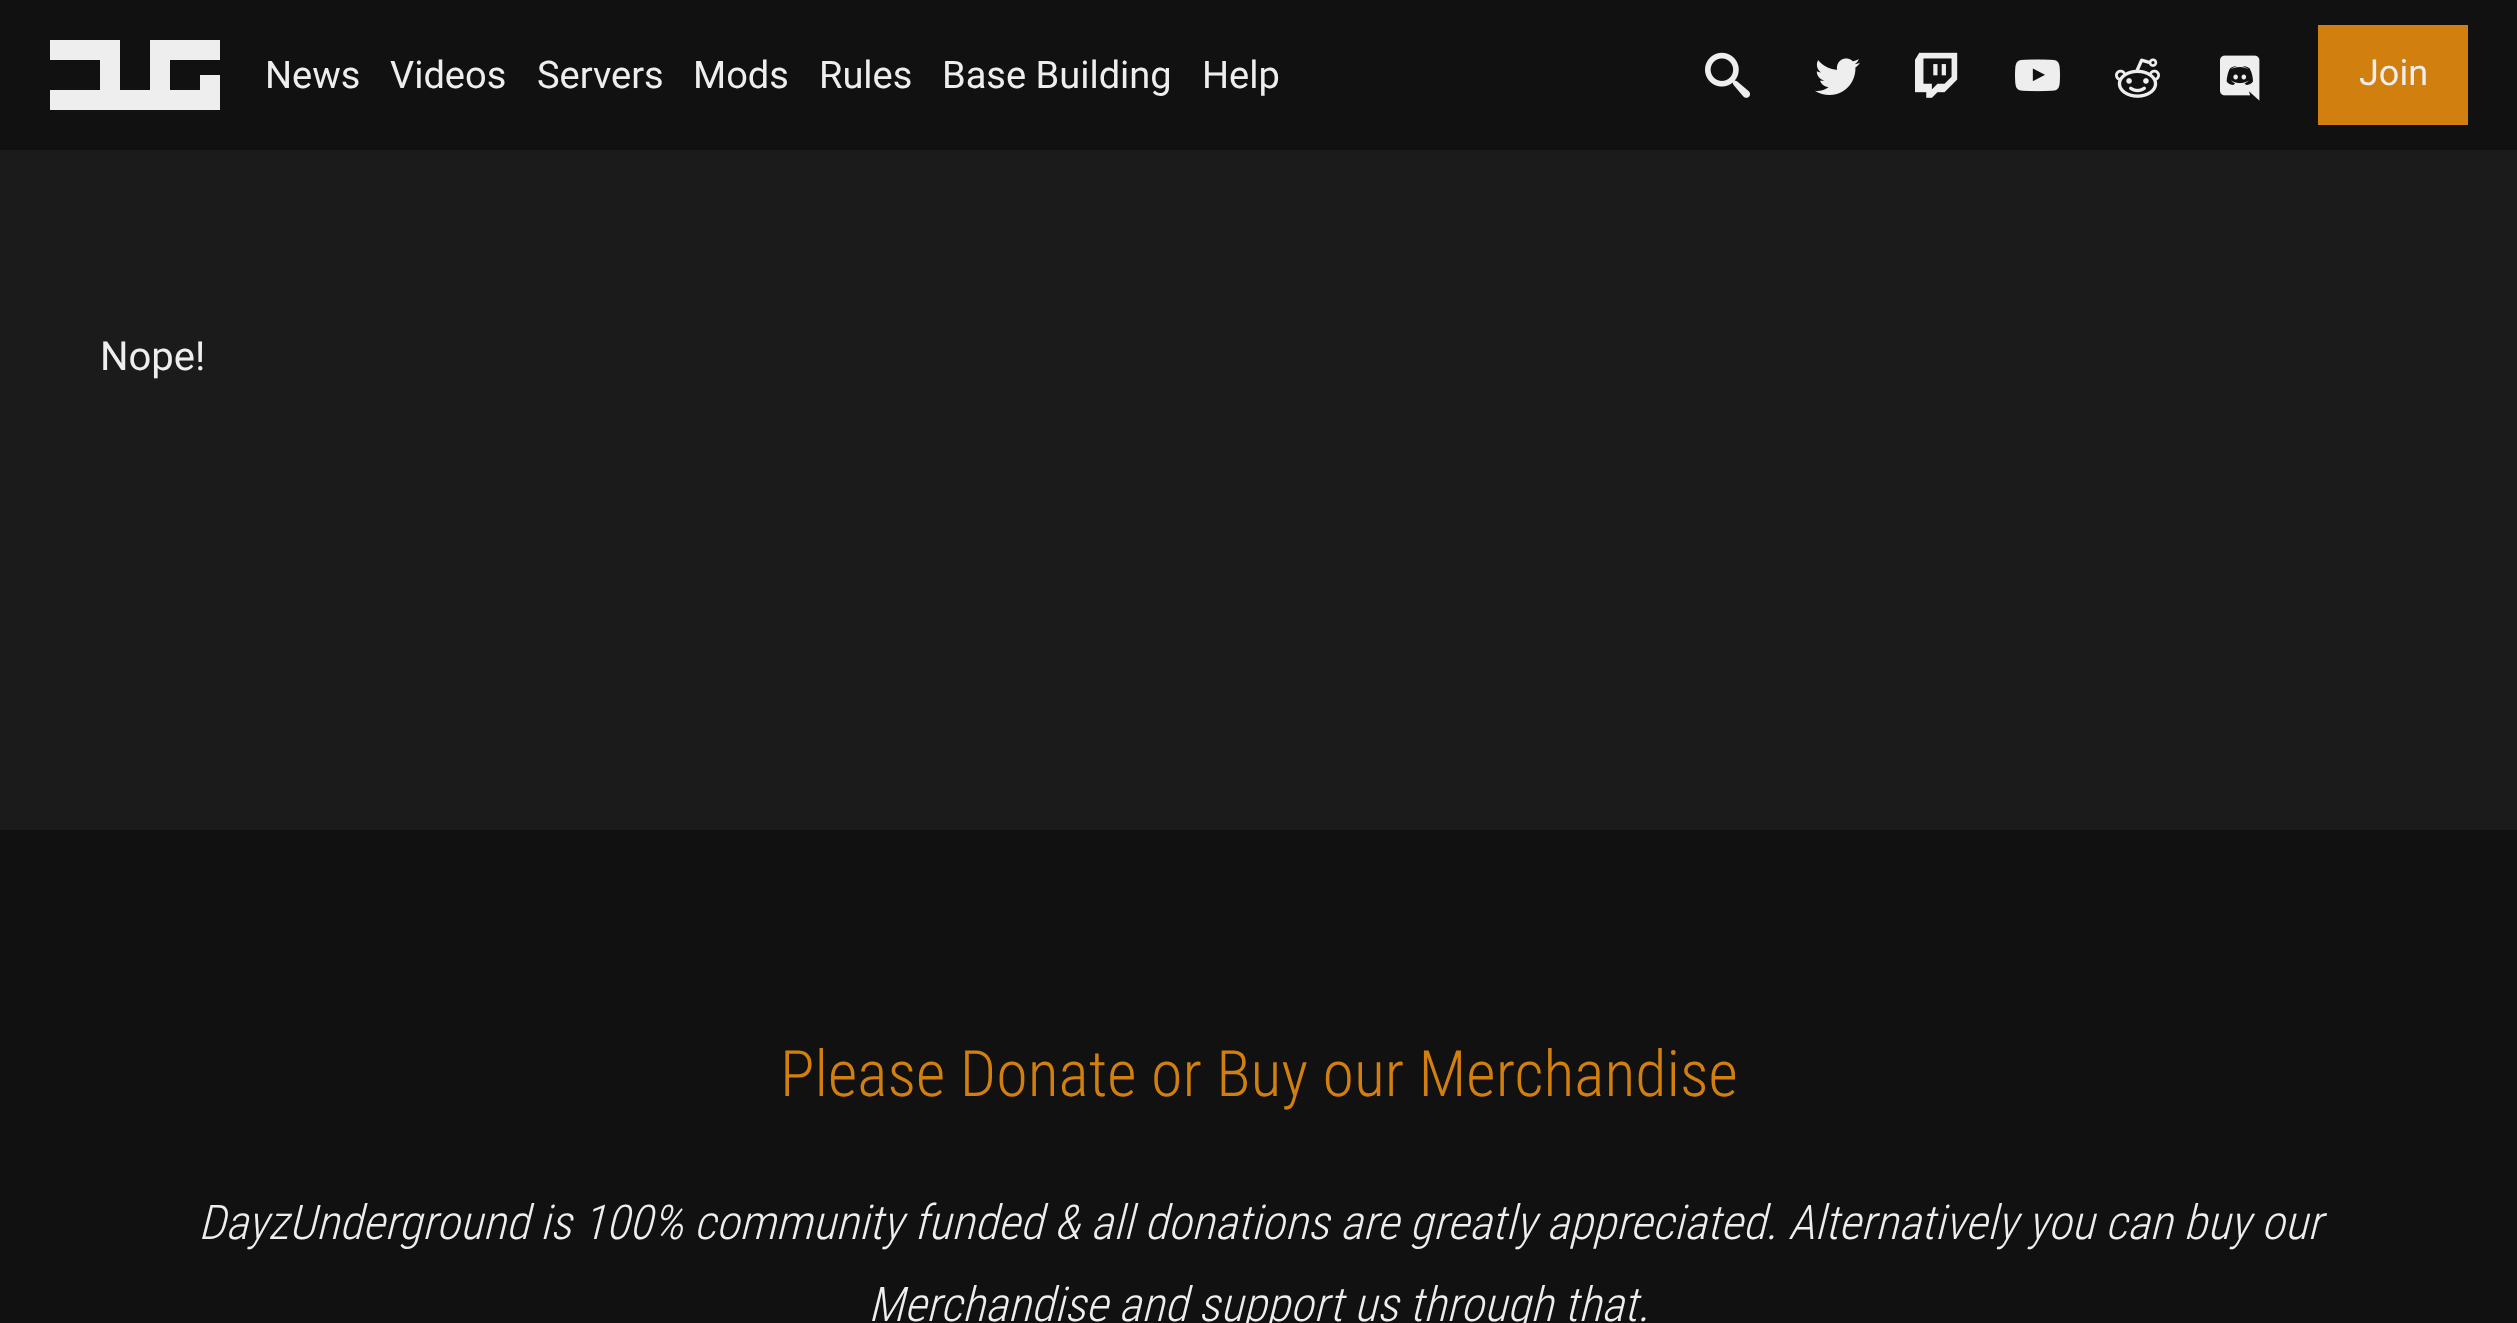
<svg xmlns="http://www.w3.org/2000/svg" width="2517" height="1323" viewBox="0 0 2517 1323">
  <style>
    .t1 { font: 38px Roboto; fill: #eee; }
    .t2 { font: 36px Roboto; fill: #eee; }
    .t3 { font: 40px Roboto; fill: #eee; }
    .t4 { font: 300 64px Roboto Condensed; fill: #d17f0f; }
    .t5 { font: italic 300 48px Roboto Condensed; fill: #eee; }
  </style>
  <rect width="100%" height="100%" fill="#1b1b1b"/>
  <rect x="0" y="0" width="2517" height="150" fill="#111"/>
  <path d="M170 60H220V40H150V90H120V40H50V60H100V90H50V110H220V75H200V90H170Z" fill="#eee"/>
  <text x="265" y="88" class="t1">News</text>
  <text x="390" y="88" class="t1">Videos</text>
  <text x="537" y="88" class="t1">Servers</text>
  <text x="693" y="88" class="t1">Mods</text>
  <text x="819" y="88" class="t1">Rules</text>
  <text x="942" y="88" class="t1">Base Building</text>
  <text x="1202" y="88" class="t1">Help</text>
  <image x="1705" y="52" width="45" height="46" href="images/1.png"/>
  <image x="1815" y="58" width="45" height="37" href="images/2.png"/>
  <image x="1915" y="52" width="43" height="46" href="images/3.png"/>
  <image x="2015" y="59" width="45" height="33" href="images/4.png"/>
  <image x="2115" y="58" width="45" height="40" href="images/5.png"/>
  <image x="2220" y="55" width="40" height="46" href="images/6.png"/>
  <rect x="2318" y="25" width="150" height="100" fill="#d17f0f"/>
  <text x="2359" y="85" class="t2">Join</text>
  <text x="100" y="370" class="t3">Nope!</text>
  <rect x="0" y="830" width="2517" height="493" fill="#111"/>
  <text x="780" y="1096" class="t4">Please Donate or Buy our Merchandise</text>
  <text x="198" y="1239" class="t5">DayzUnderground is 100% community funded &amp; all donations are greatly appreciated. Alternatively you can buy our</text>
  <text x="868" y="1321" class="t5">Merchandise and support us through that.</text>
</svg>
